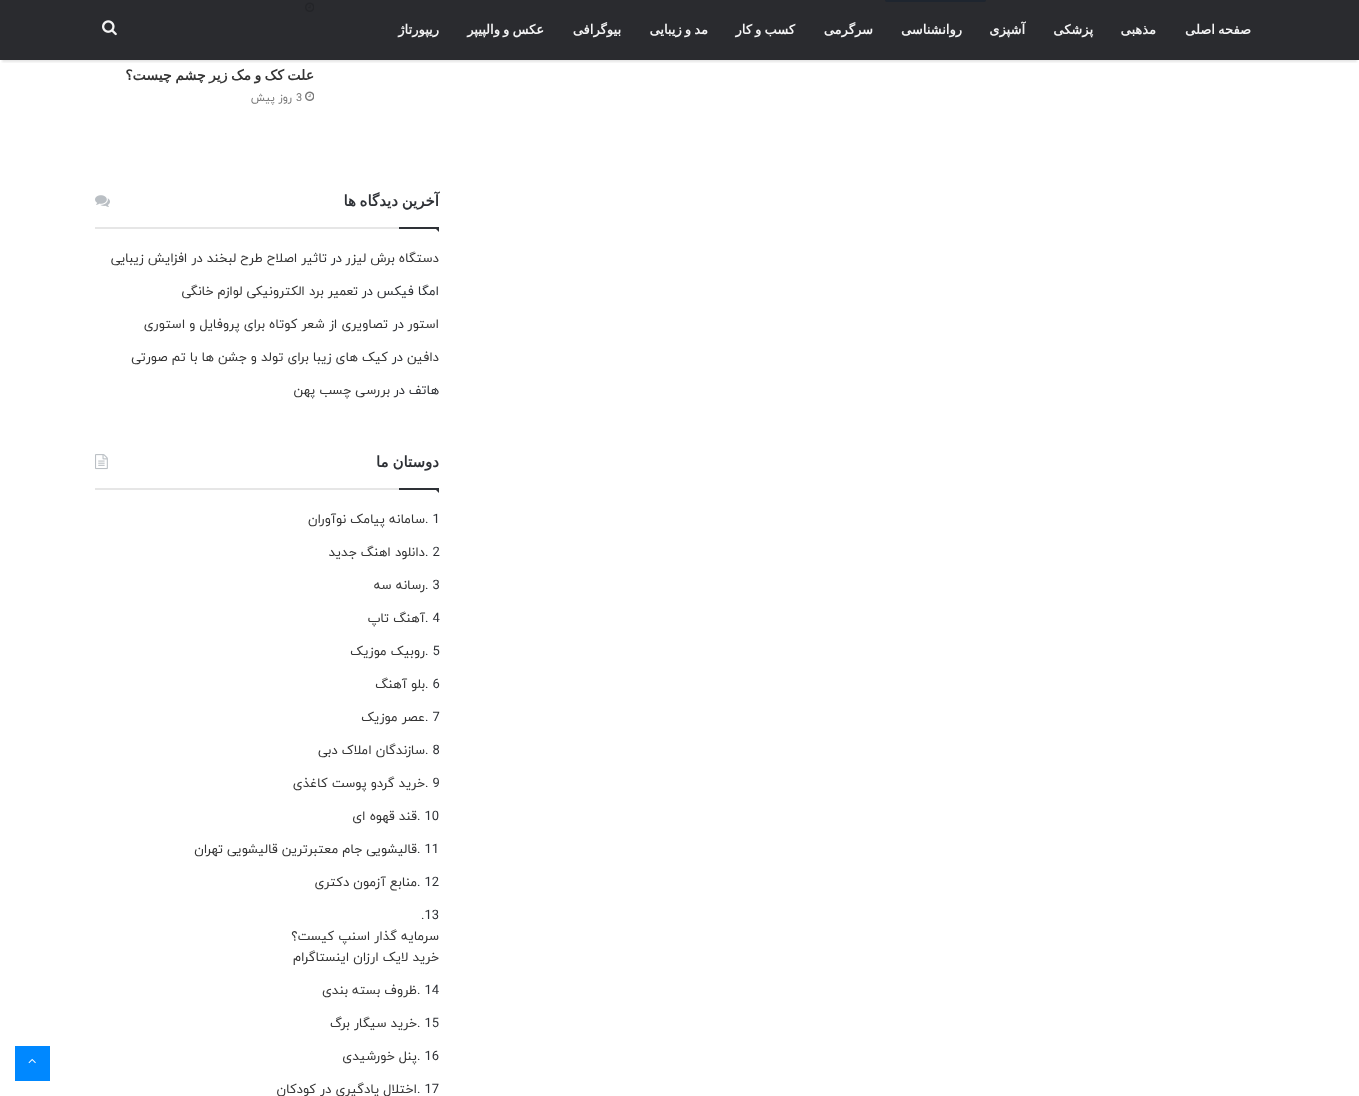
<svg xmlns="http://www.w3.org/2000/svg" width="1359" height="1096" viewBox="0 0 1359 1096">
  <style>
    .t1 { font: bold 13px DejaVu Sans; direction: rtl; fill: #f4f4f5; }
    .t2 { font: bold 14px DejaVu Sans; direction: rtl; fill: #353535; }
    .t3 { font: 11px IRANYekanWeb; fill: #777; }
    .t4 { font: 11px IRANYekanWeb; direction: rtl; fill: #777; }
    .t5 { font: bold 15px DejaVu Sans; direction: rtl; fill: #2e3136; }
    .t6 { font: 13px IRANYekanWeb; direction: rtl; fill: #353535; }
    .t7 { font: 13px IRANYekanWeb; direction: rtl; fill: #2e3136; }
    .t8 { font: 13px IRANYekanWeb; fill: #2e3136; }
  </style>
  <defs>
    <clipPath id="clip1"><rect x="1" y="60" width="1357" height="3"/></clipPath>
  </defs>
  <rect width="100%" height="100%" fill="#fff"/>
  <rect x="0" y="0" width="1359" height="60" fill="#2a2b2f"/>
  <image x="305" y="2" width="9" height="10" href="images/2.png"/>
  <g clip-path="url(#clip1)">
    <rect x="2" y="6" width="1355" height="56" fill="#0000001a" filter="blur(1px)"/>
  </g>
  <text x="1251" y="34" word-spacing="-1" class="t1">صفحه اصلی</text>
  <text x="1156" y="34" class="t1">مذهبی</text>
  <text x="1093" y="34" class="t1">پزشکی</text>
  <text x="1025" y="34" class="t1">آشپزی</text>
  <text x="962" y="34" class="t1">روانشناسی</text>
  <text x="873" y="34" class="t1">سرگرمی</text>
  <text x="795" y="34" word-spacing="-1" class="t1">کسب و کار</text>
  <text x="708" y="34" word-spacing="-1" class="t1">مد و زیبایی</text>
  <text x="621" y="34" class="t1">بیوگرافی</text>
  <text x="544" y="34" word-spacing="-1" class="t1">عکس و والپیپر</text>
  <text x="439" y="34" class="t1">ریپورتاژ</text>
  <image x="102" y="20" width="15" height="16" href="images/1.png"/>
  <rect x="885" y="-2" width="101" height="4" rx="2" fill="#1e252f"/>
  <text x="314" y="80" word-spacing="-1" class="t2">علت کک و مک زیر چشم چیست؟</text>
  <image x="305" y="91" width="9" height="10" href="images/3.png"/>
  <text x="296" y="101" class="t3">3</text>
  <text x="292" y="101" class="t4">روز پیش</text>
  <rect x="95" y="227" width="304" height="2" fill="#e6e6e6"/>
  <text x="439" y="206" word-spacing="-1" class="t5">آخرین دیدگاه ها</text>
  <image x="95" y="195" width="15" height="12" href="images/4.png"/>
  <path d="M434 227H439V232Z" fill="#2e3136"/>
  <rect x="399" y="227" width="40" height="2" fill="#2e3136"/>
  <text x="439" y="262" class="t6">دستگاه برش لیزر</text>
  <text x="342" y="262" class="t7">در</text>
  <text x="327" y="262" class="t6">تاثیر اصلاح طرح لبخند در افزایش زیبایی</text>
  <text x="439" y="295" class="t7">امگا فیکس</text>
  <text x="373" y="295" class="t7">در</text>
  <text x="358" y="295" class="t6">تعمیر برد الکترونیکی لوازم خانگی</text>
  <text x="439" y="328" class="t6">استور</text>
  <text x="404" y="328" class="t7">در</text>
  <text x="388" y="328" class="t6">تصاویری از شعر کوتاه برای پروفایل و استوری</text>
  <text x="439" y="361" class="t6">دافین</text>
  <text x="403" y="361" class="t7">در</text>
  <text x="388" y="361" class="t6">کیک های زیبا برای تولد و جشن ها با تم صورتی</text>
  <text x="439" y="394" class="t7">هاتف</text>
  <text x="405" y="394" class="t7">در</text>
  <text x="390" y="394" class="t6">بررسی چسب پهن</text>
  <rect x="95" y="488" width="304" height="2" fill="#e6e6e6"/>
  <text x="439" y="467" word-spacing="-1" class="t5">دوستان ما</text>
  <image x="95" y="454" width="13" height="16" href="images/5.png"/>
  <path d="M434 488H439V493Z" fill="#2e3136"/>
  <rect x="399" y="488" width="40" height="2" fill="#2e3136"/>
  <text x="425" y="523" class="t8">. 1</text>
  <text x="425" y="523" class="t6">سامانه پیامک نوآوران</text>
  <text x="425" y="556" class="t8">. 2</text>
  <text x="425" y="556" class="t6">دانلود اهنگ جدید</text>
  <text x="425" y="589" class="t8">. 3</text>
  <text x="425" y="589" class="t6">رسانه سه</text>
  <text x="425" y="622" class="t8">. 4</text>
  <text x="425" y="622" class="t6">آهنگ تاپ</text>
  <text x="425" y="655" class="t8">. 5</text>
  <text x="425" y="655" class="t6">روبیک موزیک</text>
  <text x="425" y="688" class="t8">. 6</text>
  <text x="425" y="688" class="t6">بلو آهنگ</text>
  <text x="425" y="721" class="t8">. 7</text>
  <text x="425" y="721" class="t6">عصر موزیک</text>
  <text x="425" y="754" class="t8">. 8</text>
  <text x="425" y="754" class="t6">سازندگان املاک دبی</text>
  <text x="425" y="787" class="t8">. 9</text>
  <text x="425" y="787" class="t6">خرید گردو پوست کاغذی</text>
  <text x="417" y="820" class="t8">. 10</text>
  <text x="417" y="820" class="t6">قند قهوه ای</text>
  <text x="417" y="853" class="t8">. 11</text>
  <text x="417" y="853" class="t6">قالیشویی جام معتبرترین قالیشویی تهران</text>
  <text x="417" y="886" class="t8">. 12</text>
  <text x="417" y="886" class="t6">منابع آزمون دکتری</text>
  <text x="421" y="919" class="t8">.13</text>
  <text x="439" y="940" class="t6">سرمایه گذار اسنپ کیست؟</text>
  <text x="439" y="961" class="t6">خرید لایک ارزان اینستاگرام</text>
  <text x="417" y="994" class="t8">. 14</text>
  <text x="417" y="994" class="t6">ظروف بسته بندی</text>
  <text x="417" y="1027" class="t8">. 15</text>
  <text x="417" y="1027" class="t6">خرید سیگار برگ</text>
  <text x="417" y="1060" class="t8">. 16</text>
  <text x="417" y="1060" class="t6">پنل خورشیدی</text>
  <text x="417" y="1093" class="t8">. 17</text>
  <text x="417" y="1093" class="t6">اختلال یادگیری در کودکان</text>
  <rect x="15" y="1046" width="35" height="35" fill="#08f"/>
  <image x="28" y="1058" width="8" height="6" href="images/6.png"/>
</svg>
